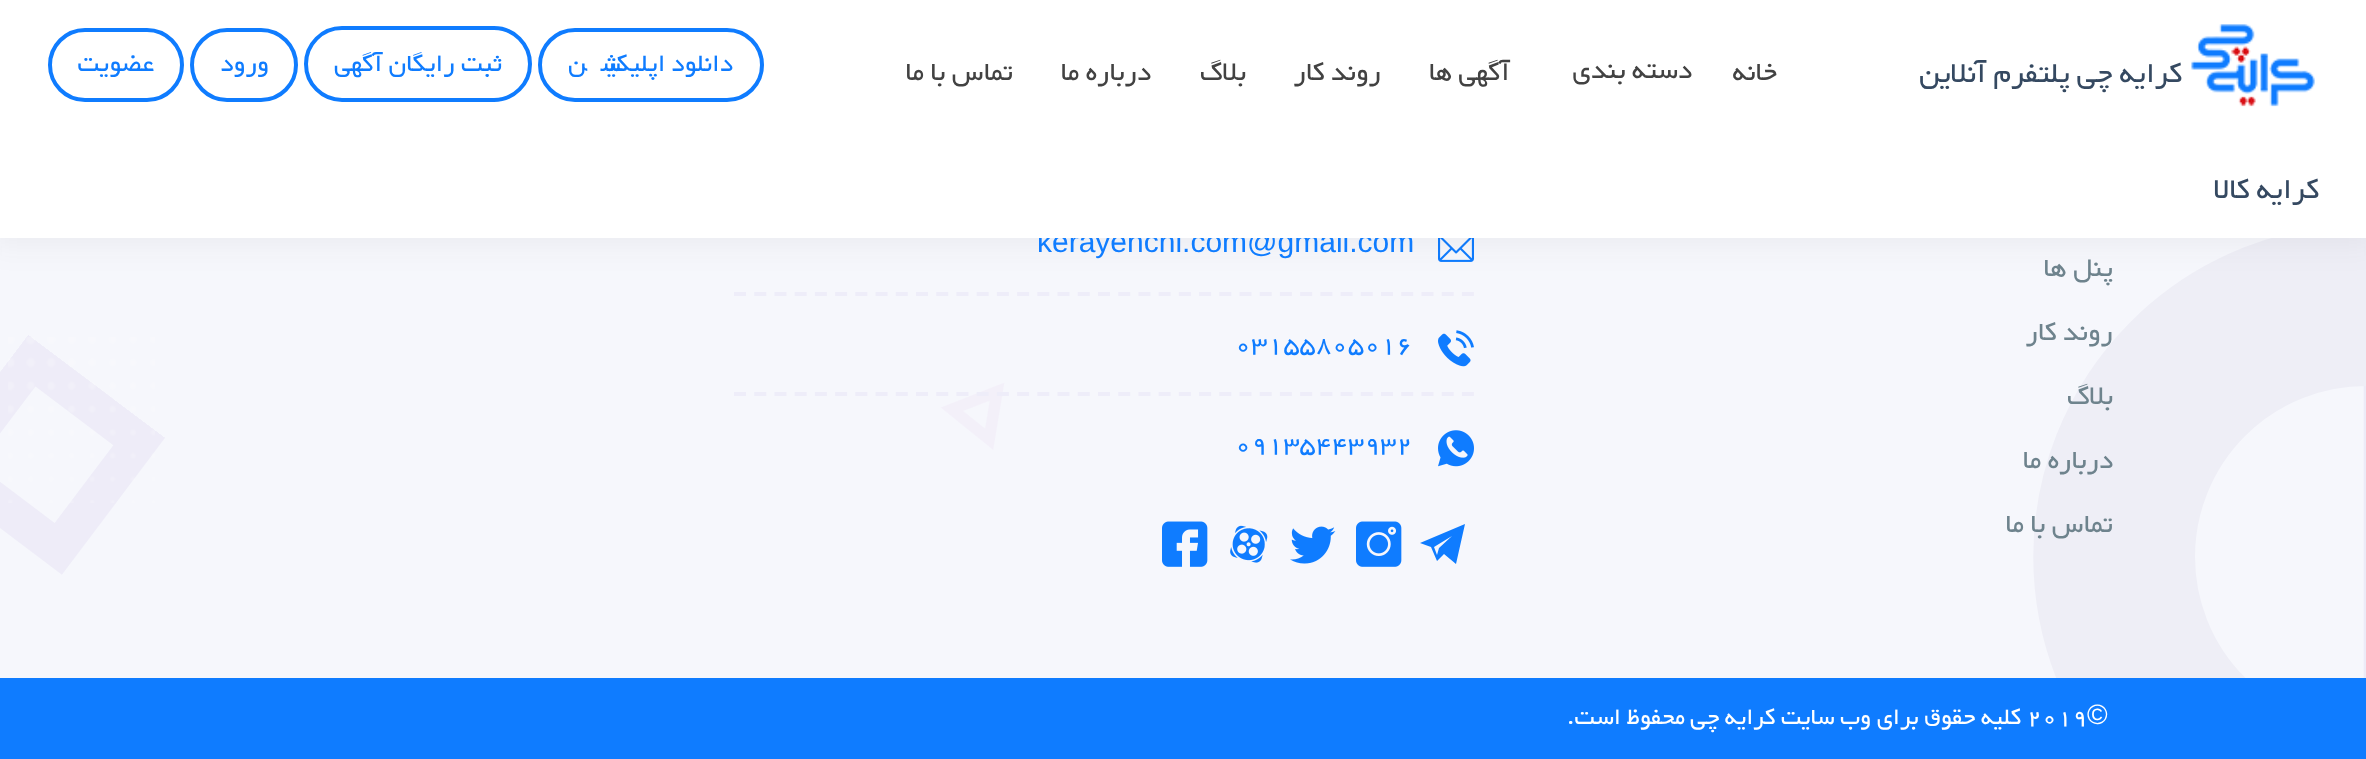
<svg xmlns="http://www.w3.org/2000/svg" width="2366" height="759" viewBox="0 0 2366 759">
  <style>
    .t1 { font: 30px Liberation Sans; fill: #0f7cff; }
    .t2 { font: 34.75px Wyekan; direction: rtl; fill: #354961; }
    .t3 { font: 32px Wyekan; direction: rtl; fill: #424242; }
    .t4 { font: 30px Wyekan; direction: rtl; fill: #0f7cff; }
    .t5 { font: 32px Wyekan; direction: rtl; fill: #6e838d; }
    .t6 { font: 30px Wyekan; fill: #0f7cff; }
    .t7 { font: 28px Liberation Sans; fill: #fff; }
    .t8 { font: 28px Wyekan; fill: #fff; }
    .t9 { font: 28px Wyekan; direction: rtl; fill: #fff; }
  </style>
  <rect width="100%" height="100%" fill="#0f7cff"/>
  <image x="0" y="238" width="2366" height="440" href="images/2.png"/>
  <image x="1438" y="238" width="36" height="24" href="images/3.png"/>
  <rect x="-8" y="-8" width="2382" height="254" fill="#2223240d" filter="blur(15px)"/>
  <text x="1037" y="252" class="t1">kerayehchi.com@gmail.com</text>
  <rect x="0" y="0" width="2366" height="238" fill="#fff"/>
  <image x="2191" y="24" width="124" height="83" href="images/1.png"/>
  <text x="2182" y="82" class="t2">کرایه چی پلتفرم آنلاین</text>
  <text x="2319" y="198" class="t2">کرایه کالا</text>
  <text x="1777" y="80" class="t3">خانه</text>
  <text x="1692" y="78" class="t3">دسته بندی</text>
  <text x="1510" y="80" class="t3">آگهی ها</text>
  <text x="1381" y="80" class="t3">روند کار</text>
  <text x="1246" y="80" class="t3">بلاگ</text>
  <text x="1151" y="80" class="t3">درباره ما</text>
  <text x="1013" y="80" class="t3">تماس با ما</text>
  <rect x="540" y="30" width="222" height="70" rx="35" fill="none" stroke="#0f7cff" stroke-width="4"/>
  <text x="733" y="71" class="t4">دانلود اپلیکیشن</text>
  <rect x="306" y="28" width="224" height="72" rx="36" fill="none" stroke="#0f7cff" stroke-width="4"/>
  <text x="502" y="71" class="t4">ثبت رایگان آگهی</text>
  <rect x="192" y="30" width="104" height="70" rx="35" fill="none" stroke="#0f7cff" stroke-width="4"/>
  <text x="269" y="71" class="t4">ورود</text>
  <rect x="50" y="30" width="132" height="70" rx="35" fill="none" stroke="#0f7cff" stroke-width="4"/>
  <text x="154" y="71" class="t4">عضویت</text>
  <text x="2113" y="276" class="t5">پنل ها</text>
  <text x="2113" y="340" class="t5">روند کار</text>
  <text x="2113" y="404" class="t5">بلاگ</text>
  <text x="2113" y="468" class="t5">درباره ما</text>
  <text x="2113" y="532" class="t5">تماس با ما</text>
  <path d="M734 294H1474" fill="none" stroke="#eeedf9" stroke-width="4" stroke-dasharray="12 8.22"/>
  <path d="M734 394H1474" fill="none" stroke="#eeedf9" stroke-width="4" stroke-dasharray="12 8.22"/>
  <image x="1438" y="330" width="36" height="37" href="images/4.png"/>
  <text x="1235" y="352" class="t6">03155805016</text>
  <image x="1438" y="430" width="36" height="37" href="images/5.png"/>
  <text x="1235" y="452" class="t6">09135443932</text>
  <path d="M1431 547L1437 561L1444 554L1456 564L1465 524L1420 543ZM1452 536L1439 548L1437 555L1434 547Z" fill="#0f7cff"/>
  <image x="1356" y="521" width="46" height="46" href="images/6.png"/>
  <image x="1290" y="526" width="46" height="38" href="images/7.png"/>
  <image x="1230" y="525" width="38" height="38" href="images/8.png"/>
  <image x="1162" y="521" width="46" height="46" href="images/9.png"/>
  <image x="8" y="337" width="147" height="166" href="images/10.png"/>
  <text x="2087" y="724" class="t7">©</text>
  <text x="2027" y="724" class="t8">2019</text>
  <text x="2021" y="724" class="t9">کلیه حقوق برای وب سایت کرایه چی محفوظ است.</text>
</svg>
